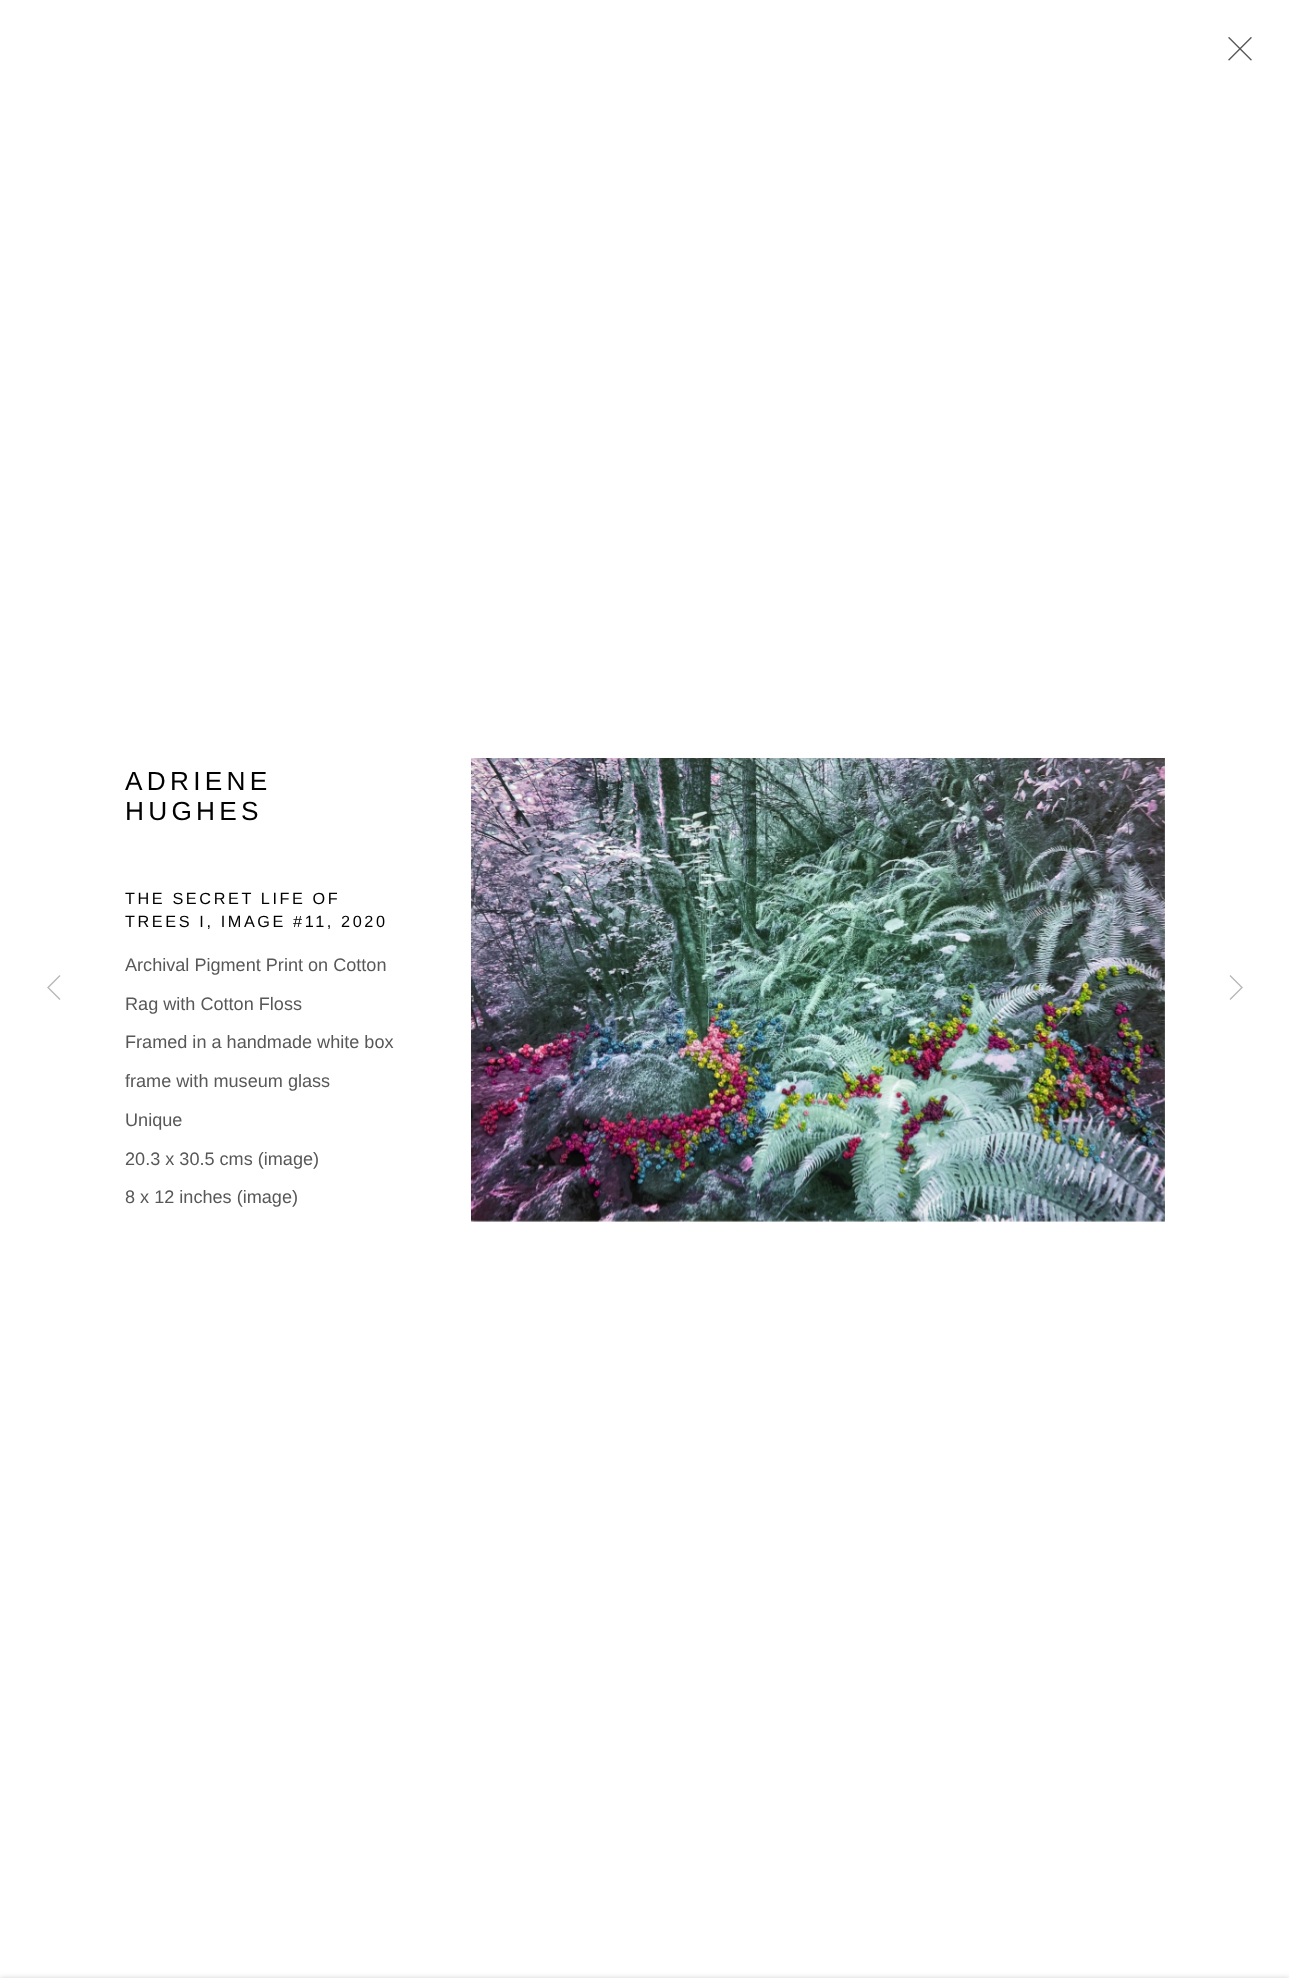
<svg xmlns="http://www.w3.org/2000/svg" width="1289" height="1978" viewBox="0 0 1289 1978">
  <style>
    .t1 { font: 26.25px Liberation Sans; letter-spacing: 4.25px; fill: #010101; }
    .t2 { font: 16.25px Liberation Sans; letter-spacing: 2.6px; fill: #010101; }
    .t3 { font: 18.1px Liberation Sans; fill: #585858; }
  </style>
  <rect width="100%" height="100%" fill="#fff"/>
  <image x="1228" y="37" width="24" height="24" href="images/1.png"/>
  <text x="125" y="790" class="t1">ADRIENE</text>
  <text x="125" y="820" class="t1">HUGHES</text>
  <text x="125" y="904" class="t2">THE SECRET LIFE OF</text>
  <text x="125" y="927" class="t2">TREES I, IMAGE #11, 2020</text>
  <text x="125" y="971" class="t3">Archival Pigment Print on Cotton</text>
  <text x="125" y="1010" class="t3">Rag with Cotton Floss</text>
  <text x="125" y="1048" class="t3">Framed in a handmade white box</text>
  <text x="125" y="1087" class="t3">frame with museum glass</text>
  <text x="125" y="1126" class="t3">Unique</text>
  <text x="125" y="1165" class="t3">20.3 x 30.5 cms (image)</text>
  <text x="125" y="1203" class="t3">8 x 12 inches (image)</text>
  <image x="471" y="758" width="694" height="464" href="images/2.png"/>
  <path d="M48 988.5L59.5 1000L60.5 999L49 987.5L60.5 976L59.5 975L47 987.5Z" fill="#b9b9b9"/>
  <path d="M1243 987.5L1230.5 975L1229.5 976L1241 987.5L1229.5 999L1230.5 1000Z" fill="#b9b9b9"/>
  <rect x="0" y="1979" width="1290" height="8" fill="#0000003b" filter="blur(3px)"/>
</svg>
